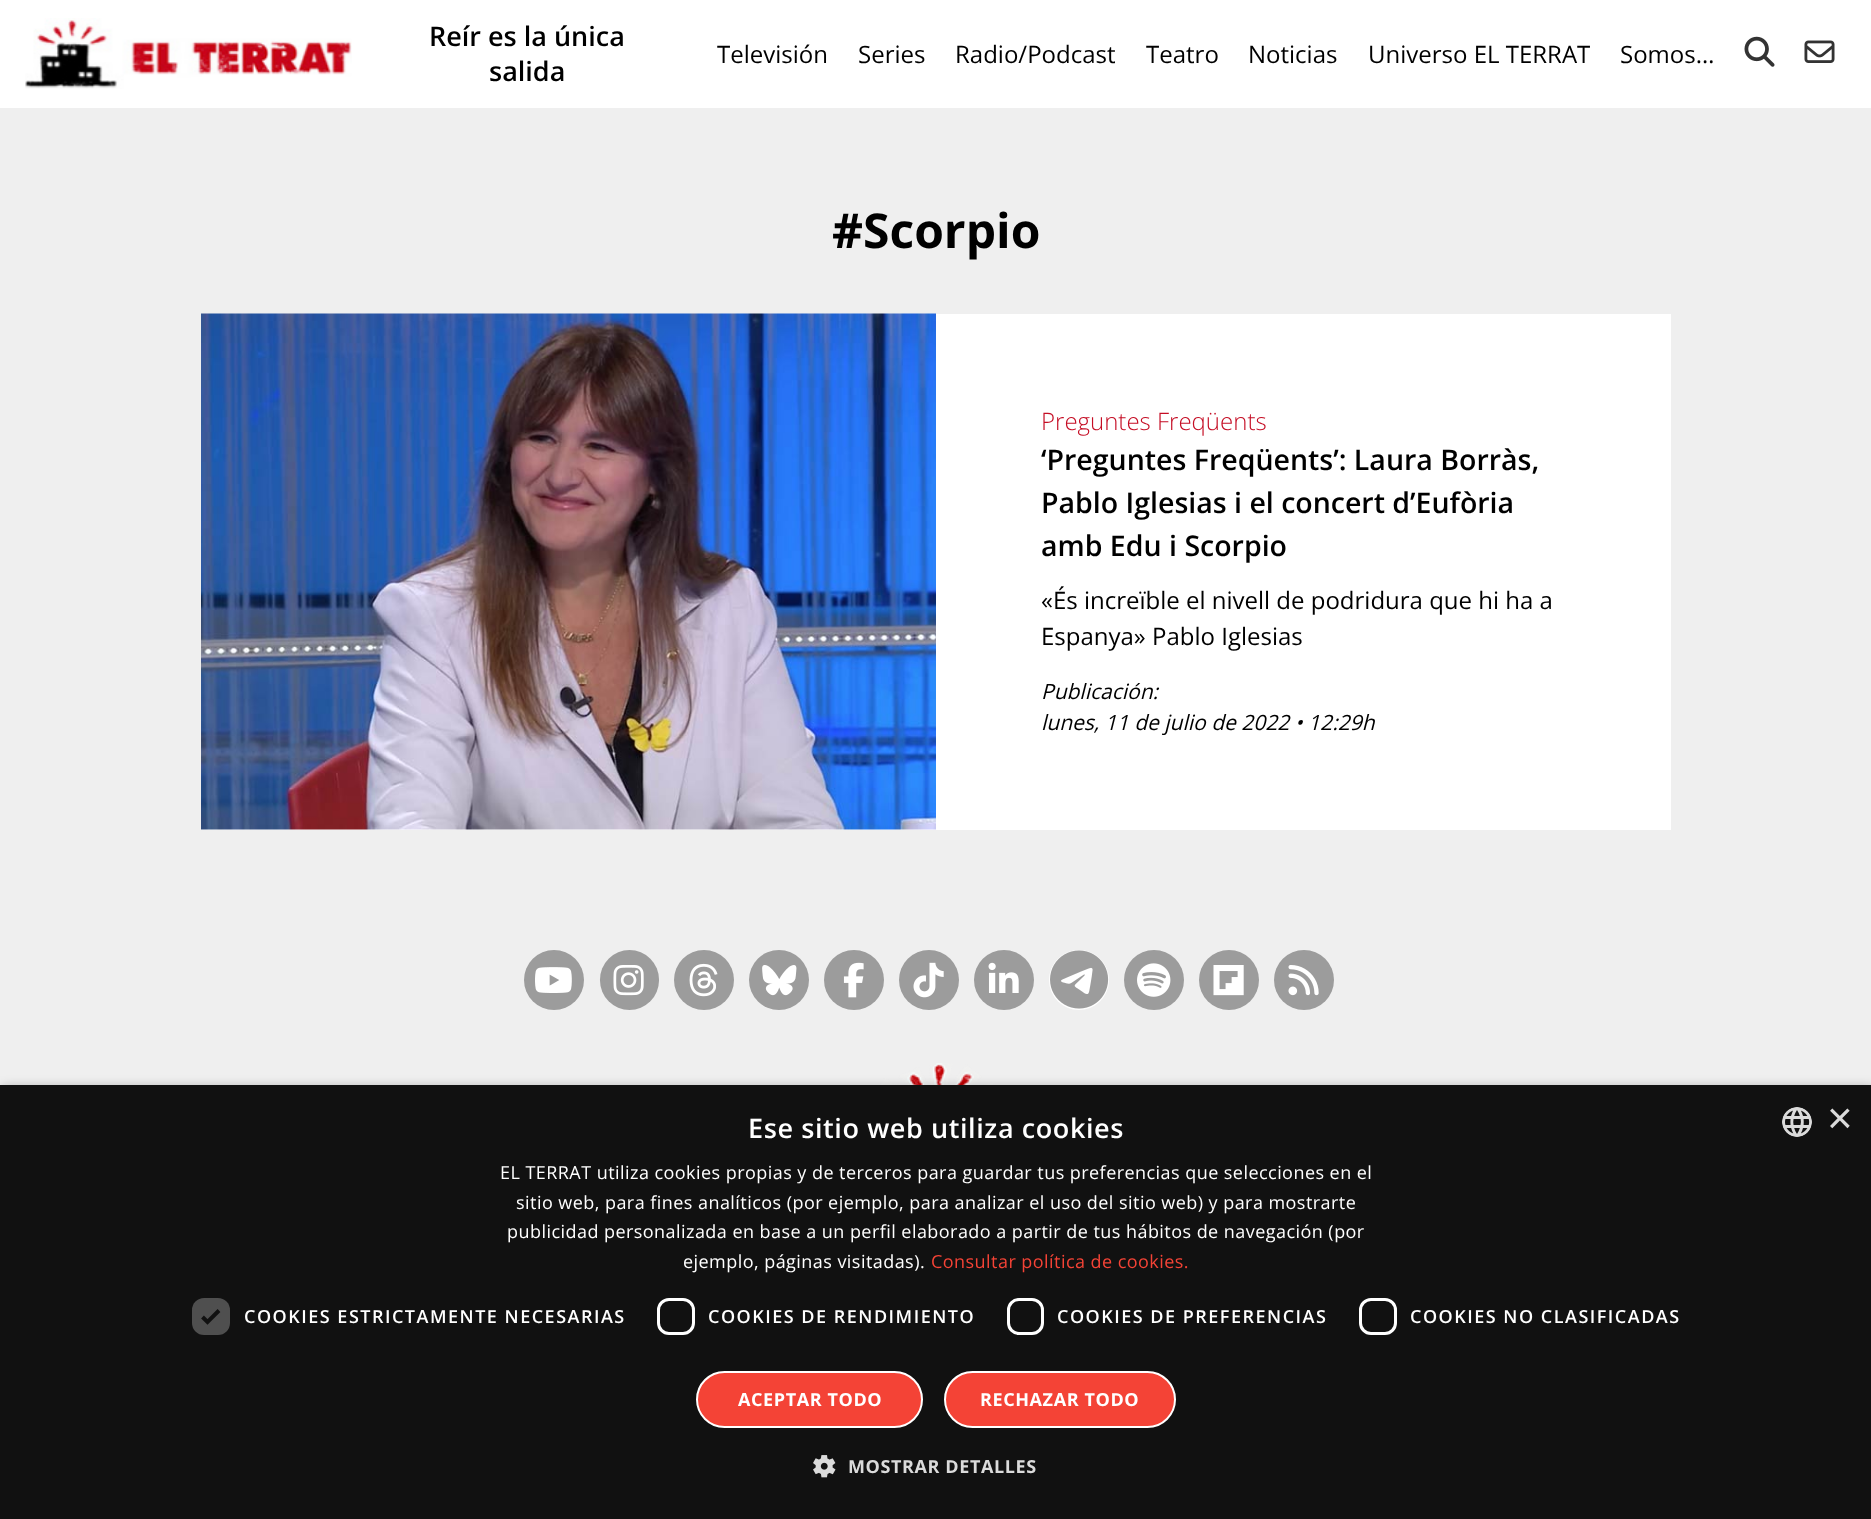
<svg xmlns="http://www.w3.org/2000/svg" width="1871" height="1519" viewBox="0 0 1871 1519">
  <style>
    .t1 { font: 600 27px Open Sans; fill: #000; }
    .t2 { font: 24px Open Sans; fill: #000; }
    .t3 { font: bold 48px Open Sans; fill: #000; }
    .t4 { font: 300 24px Open Sans; fill: #c50d24; }
    .t5 { font: 600 28.5px Open Sans; fill: #000; }
    .t6 { font: italic 21px Open Sans; fill: #000; }
    .t7 { font: 600 27px Open Sans; letter-spacing: 0.6px; fill: #fff; }
    .t8 { font: 44px Liberation Sans; fill: #dbdbdb; }
    .t9 { font: 18px Open Sans; letter-spacing: 0.45px; fill: #fff; }
    .t10 { font: 18px Open Sans; letter-spacing: 0.45px; fill: #f44336; }
    .t11 { font: 600 18px Open Sans; letter-spacing: 1.5px; fill: #fff; }
    .t12 { font: bold 18px Open Sans; letter-spacing: 0.6px; fill: #fff; }
    .t13 { font: bold 18px Open Sans; letter-spacing: 0.6px; fill: #dbdbdb; }
  </style>
  <rect width="100%" height="100%" fill="#efefef"/>
  <rect x="0" y="0" width="1871" height="108" fill="#fff"/>
  <image x="25" y="18" width="327" height="71" href="images/1.png"/>
  <text x="429" y="46" class="t1">Reír es la única</text>
  <text x="489" y="81" class="t1">salida</text>
  <text x="717" y="63" class="t2">Televisión</text>
  <text x="858" y="63" class="t2">Series</text>
  <text x="955" y="63" class="t2">Radio/Podcast</text>
  <text x="1146" y="63" class="t2">Teatro</text>
  <text x="1248" y="63" class="t2">Noticias</text>
  <text x="1368" y="63" class="t2">Universo EL TERRAT</text>
  <text x="1620" y="63" class="t2">Somos…</text>
  <image x="1744" y="36" width="31" height="31" href="images/2.png"/>
  <image x="1804" y="40" width="31" height="23" href="images/3.png"/>
  <text x="832" y="248" class="t3">#Scorpio</text>
  <rect x="201" y="314" width="1470" height="516" fill="#fff"/>
  <image x="201" y="313" width="735" height="517" href="images/4.png"/>
  <text x="1041" y="430" class="t4">Preguntes Freqüents</text>
  <text x="1041" y="470" class="t5">‘Preguntes Freqüents’: Laura Borràs,</text>
  <text x="1041" y="513" class="t5">Pablo Iglesias i el concert d’Eufòria</text>
  <text x="1041" y="556" class="t5">amb Edu i Scorpio</text>
  <text x="1041" y="609" class="t2">«És increïble el nivell de podridura que hi ha a</text>
  <text x="1041" y="645" class="t2">Espanya» Pablo Iglesias</text>
  <text x="1041" y="699" class="t6">Publicación:</text>
  <text x="1041" y="730" class="t6">lunes, 11 de julio de 2022 • 12:29h</text>
  <circle cx="554" cy="980" r="30" fill="#9c9c9c"/>
  <image x="535" y="967" width="37" height="26" href="images/5.png"/>
  <rect x="600" y="950" width="59" height="60" rx="29.5" fill="#9c9c9c"/>
  <image x="613" y="965" width="31" height="31" href="images/6.png"/>
  <circle cx="704" cy="980" r="30" fill="#9c9c9c"/>
  <image x="689" y="963" width="29" height="34" href="images/7.png"/>
  <circle cx="779" cy="980" r="30" fill="#9c9c9c"/>
  <image x="762" y="965" width="35" height="31" href="images/8.png"/>
  <circle cx="854" cy="980" r="30" fill="#9c9c9c"/>
  <image x="843" y="962" width="21" height="36" href="images/9.png"/>
  <circle cx="929" cy="980" r="30" fill="#9c9c9c"/>
  <image x="913" y="962" width="31" height="36" href="images/10.png"/>
  <circle cx="1004" cy="980" r="30" fill="#9c9c9c"/>
  <image x="988" y="962" width="31" height="31" href="images/11.png"/>
  <circle cx="1079" cy="980" r="30" fill="#fff"/>
  <image x="1050" y="950" width="59" height="59" href="images/12.png"/>
  <circle cx="1154" cy="980" r="30" fill="#9c9c9c"/>
  <image x="1137" y="963" width="34" height="34" href="images/13.png"/>
  <circle cx="1229" cy="980" r="30" fill="#9c9c9c"/>
  <image x="1213" y="965" width="31" height="31" href="images/14.png"/>
  <circle cx="1304" cy="980" r="30" fill="#9c9c9c"/>
  <image x="1288" y="965" width="31" height="31" href="images/15.png"/>
  <image x="880" y="1063" width="115" height="22" href="images/16.png"/>
  <rect x="2" y="1088" width="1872" height="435" fill="#00000059" filter="blur(6px)"/>
  <rect x="0" y="1085" width="1871" height="434" fill="#111"/>
  <text x="748" y="1138" class="t7">Ese sitio web utiliza cookies</text>
  <image x="1782" y="1107" width="30" height="30" href="images/17.png"/>
  <text x="1827" y="1133" class="t8">×</text>
  <text x="500" y="1179" class="t9">EL TERRAT utiliza cookies propias y de terceros para guardar tus preferencias que selecciones en el</text>
  <text x="516" y="1209" class="t9">sitio web, para fines analíticos (por ejemplo, para analizar el uso del sitio web) y para mostrarte</text>
  <text x="507" y="1238" class="t9">publicidad personalizada en base a un perfil elaborado a partir de tus hábitos de navegación (por</text>
  <text x="683" y="1268" class="t9">ejemplo, páginas visitadas).</text>
  <text x="931" y="1268" class="t10">Consultar política de cookies.</text>
  <rect x="192" y="1298" width="38" height="37" rx="12" fill="#4f4f4f"/>
  <path d="M202.5 1317L207.5 1322L219 1310.5" fill="none" stroke="#111" stroke-width="3.9"/>
  <text x="244" y="1323" class="t11">COOKIES ESTRICTAMENTE NECESARIAS</text>
  <rect x="658.5" y="1299.5" width="35" height="34" rx="10.5" fill="none" stroke="#fff" stroke-width="3"/>
  <text x="708" y="1323" class="t11">COOKIES DE RENDIMIENTO</text>
  <rect x="1008.5" y="1299.5" width="34" height="34" rx="10.5" fill="none" stroke="#fff" stroke-width="3"/>
  <text x="1057" y="1323" class="t11">COOKIES DE PREFERENCIAS</text>
  <rect x="1360.5" y="1299.5" width="35" height="34" rx="10.5" fill="none" stroke="#fff" stroke-width="3"/>
  <text x="1410" y="1323" class="t11">COOKIES NO CLASIFICADAS</text>
  <rect x="697" y="1372" width="225" height="55" rx="27.5" fill="#f44336" stroke="#fff" stroke-width="2"/>
  <text x="738" y="1406" class="t12">ACEPTAR TODO</text>
  <rect x="945" y="1372" width="230" height="55" rx="27.5" fill="#f44336" stroke="#fff" stroke-width="2"/>
  <text x="980" y="1406" class="t12">RECHAZAR TODO</text>
  <image x="813" y="1455" width="23" height="23" href="images/18.png"/>
  <text x="848" y="1473" class="t13">MOSTRAR DETALLES</text>
</svg>
